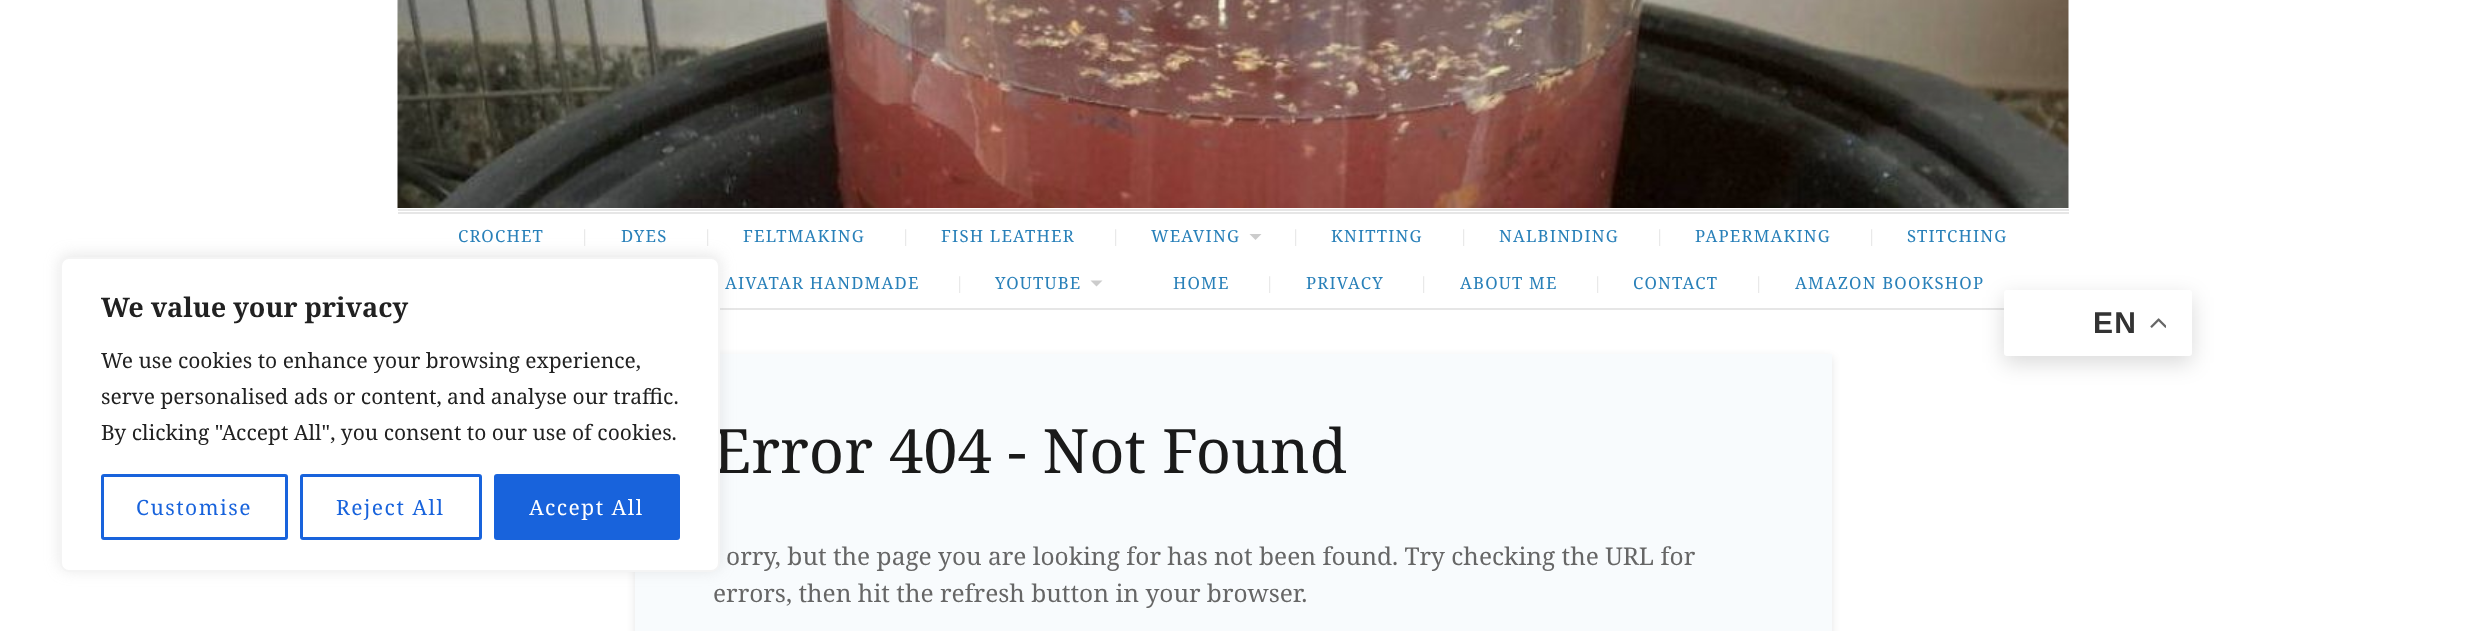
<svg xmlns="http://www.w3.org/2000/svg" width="2466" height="631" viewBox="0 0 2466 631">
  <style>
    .t1 { font: 61.25px Noto Serif; fill: #1a1a1a; }
    .t2 { font: bold 27px Noto Serif; fill: #212121; }
    .t3 { font: 21px Noto Serif; fill: #212121; }
    .t4 { font: 21px Noto Serif; letter-spacing: 1.5px; fill: #1863dc; }
    .t5 { font: 21px Noto Serif; letter-spacing: 1.5px; fill: #fff; }
    .t6 { font: 16.75px Noto Serif; letter-spacing: 1.2px; fill: #2980b9; }
    .t7 { font: 16.75px Noto Serif; letter-spacing: 1.2px; fill: #e6e6e6; }
    .t8 { font: bold 30px Liberation Sans; letter-spacing: 1.2px; fill: #333; }
    .t9 { font: 24.5px Noto Serif; fill: #666; }
  </style>
  <rect width="100%" height="100%" fill="#fff"/>
  <rect x="720" y="308" width="1284" height="2" fill="#e6e6e6"/>
  <rect x="635" y="357" width="1197" height="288" fill="#0000001a" filter="blur(4.5px)"/>
  <rect x="635" y="354" width="1197" height="277" fill="#f8fbfd"/>
  <rect x="60" y="255" width="660" height="315" rx="9" fill="#acabab4d" filter="blur(7.5px)"/>
  <text x="713" y="473" class="t1">Error 404 - Not Found</text>
  <rect x="61" y="258" width="658" height="313" rx="8" fill="#fff" stroke="#f4f4f4" stroke-width="2"/>
  <text x="101" y="317" class="t2">We value your privacy</text>
  <text x="101" y="368" class="t3">We use cookies to enhance your browsing experience,</text>
  <text x="101" y="404" class="t3">serve personalised ads or content, and analyse our traffic.</text>
  <text x="101" y="440" class="t3">By clicking "Accept All", you consent to our use of cookies.</text>
  <rect x="102.5" y="475.5" width="184" height="63" rx="1.5" fill="none" stroke="#1863dc" stroke-width="3"/>
  <text x="136" y="515" class="t4">Customise</text>
  <rect x="301.5" y="475.5" width="179" height="63" rx="1.5" fill="none" stroke="#1863dc" stroke-width="3"/>
  <text x="336" y="515" class="t4">Reject All</text>
  <rect x="495.5" y="475.5" width="183" height="63" rx="1.5" fill="#1863dc" stroke="#1863dc" stroke-width="3"/>
  <text x="529" y="515" class="t5">Accept All</text>
  <image x="397" y="0" width="1672" height="208" href="images/1.png"/>
  <rect x="398" y="209" width="1671" height="2" fill="#e6e6e6"/>
  <rect x="398" y="212" width="1671" height="2" fill="#e6e6e6"/>
  <text x="458" y="242" class="t6">CROCHET</text>
  <text x="580" y="242" class="t7">|</text>
  <text x="621" y="242" class="t6">DYES</text>
  <text x="703" y="242" class="t7">|</text>
  <text x="743" y="242" class="t6">FELTMAKING</text>
  <text x="901" y="242" class="t7">|</text>
  <text x="941" y="242" class="t6">FISH LEATHER</text>
  <text x="1111" y="242" class="t7">|</text>
  <text x="1151" y="242" class="t6">WEAVING</text>
  <path d="M1249.5 234H1261.5L1255.5 240Z" fill="#ccc"/>
  <text x="1291" y="242" class="t7">|</text>
  <text x="1331" y="242" class="t6">KNITTING</text>
  <text x="1459" y="242" class="t7">|</text>
  <text x="1499" y="242" class="t6">NALBINDING</text>
  <text x="1655" y="242" class="t7">|</text>
  <text x="1695" y="242" class="t6">PAPERMAKING</text>
  <text x="1867" y="242" class="t7">|</text>
  <text x="1907" y="242" class="t6">STITCHING</text>
  <text x="725" y="289" class="t6">AIVATAR HANDMADE</text>
  <text x="955" y="289" class="t7">|</text>
  <text x="995" y="289" class="t6">YOUTUBE</text>
  <path d="M1090.5 280.5H1102.5L1096.5 286.5Z" fill="#ccc"/>
  <text x="1173" y="289" class="t6">HOME</text>
  <text x="1265" y="289" class="t7">|</text>
  <text x="1306" y="289" class="t6">PRIVACY</text>
  <text x="1419" y="289" class="t7">|</text>
  <text x="1460" y="289" class="t6">ABOUT ME</text>
  <text x="1593" y="289" class="t7">|</text>
  <text x="1633" y="289" class="t6">CONTACT</text>
  <text x="1754" y="289" class="t7">|</text>
  <text x="1795" y="289" class="t6">AMAZON BOOKSHOP</text>
  <rect x="2004" y="297" width="188" height="66" rx="3" fill="#00000026" filter="blur(11px)"/>
  <rect x="2004" y="290" width="188" height="66" rx="3" fill="#fff"/>
  <text x="2093" y="333" class="t8">EN</text>
  <image x="2150" y="318" width="16" height="10" href="images/2.png"/>
  <text x="726" y="565" class="t9">orry, but the page you are looking for has not been found. Try checking the URL for</text>
  <text x="713" y="602" class="t9">errors, then hit the refresh button in your browser.</text>
</svg>
